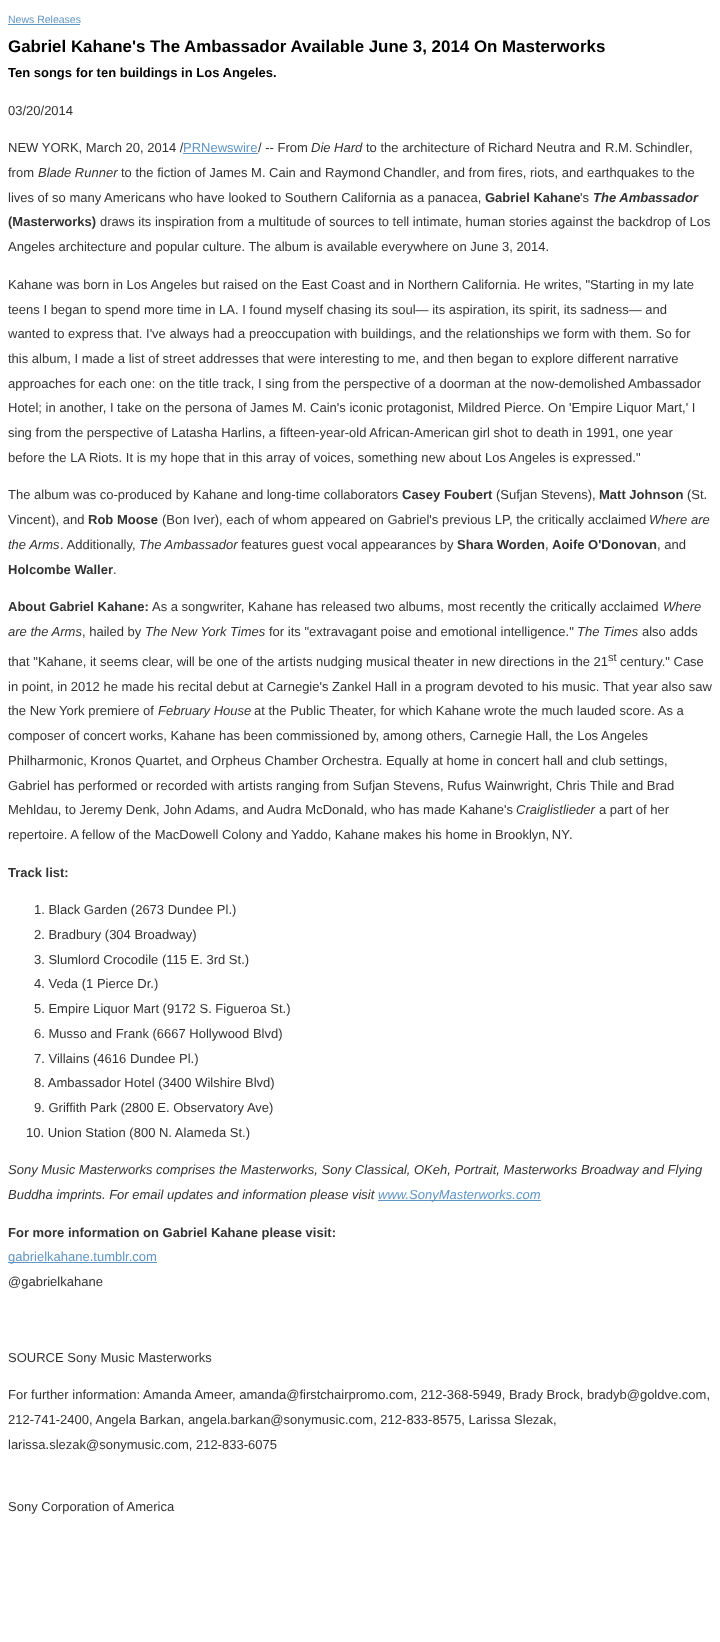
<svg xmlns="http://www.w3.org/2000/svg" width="720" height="1642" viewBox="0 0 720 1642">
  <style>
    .t1 { font: 10.5px Liberation Sans; fill: #6095c3; }
    .t2 { font: bold 16.9px Liberation Sans; fill: #000; }
    .t3 { font: bold 13px Liberation Sans; fill: #000; }
    .t4 { font: 13px Liberation Sans; fill: #333; }
    .t5 { font: 13px Liberation Sans; fill: #6095c3; }
    .t6 { font: italic 13px Liberation Sans; fill: #333; }
    .t7 { font: bold 13px Liberation Sans; fill: #333; }
    .t8 { font: italic bold 13px Liberation Sans; fill: #333; }
    .t9 { font: 11px Liberation Sans; fill: #333; }
    .t10 { font: italic 13px Liberation Sans; fill: #6095c3; }
  </style>
  <rect width="100%" height="100%" fill="#fff"/>
  <text x="8" y="23" class="t1">News Releases</text>
  <rect x="8" y="24" width="72" height="1" fill="#6095c3"/>
  <text x="8" y="52" class="t2">Gabriel Kahane's The Ambassador Available June 3, 2014 On Masterworks</text>
  <text x="8" y="77" class="t3">Ten songs for ten buildings in Los Angeles.</text>
  <text x="8" y="115" class="t4">03/20/2014</text>
  <text x="8" y="152" class="t4">NEW YORK, March 20, 2014 /</text>
  <text x="183" y="152" class="t5">PRNewswire</text>
  <rect x="183" y="153" width="75" height="1" fill="#6095c3"/>
  <text x="258" y="152" class="t4">/ -- From</text>
  <text x="311" y="152" class="t6">Die Hard</text>
  <text x="366" y="152" class="t4">to the architecture of Richard Neutra and</text>
  <text x="605" y="152" word-spacing="-1" class="t4">R.M. Schindler</text>
  <text x="689" y="152" class="t4">,</text>
  <text x="8" y="177" class="t4">from</text>
  <text x="38" y="177" class="t6">Blade Runner</text>
  <text x="121" y="177" class="t4">to the fiction of James M. Cain and</text>
  <text x="325" y="177" word-spacing="-1" class="t4">Raymond Chandler</text>
  <text x="436" y="177" class="t4">, and from fires, riots, and earthquakes to the</text>
  <text x="8" y="202" class="t4">lives of so many Americans who have looked to Southern California as a panacea,</text>
  <text x="485" y="202" class="t7">Gabriel Kahane</text>
  <text x="580" y="202" class="t4">'s</text>
  <text x="593" y="202" class="t8">The Ambassador</text>
  <text x="8" y="226" class="t7">(Masterworks)</text>
  <text x="100" y="226" class="t4">draws its inspiration from a multitude of sources to tell intimate, human stories against the backdrop of Los</text>
  <text x="8" y="251" class="t4">Angeles architecture and popular culture. The album is available everywhere on June 3, 2014.</text>
  <text x="8" y="289" class="t4">Kahane was born in Los Angeles but raised on the East Coast and in Northern California. He writes, "Starting in my late</text>
  <text x="8" y="314" class="t4">teens I began to spend more time in LA. I found myself chasing its soul— its aspiration, its spirit, its sadness— and</text>
  <text x="8" y="338" class="t4">wanted to express that. I've always had a preoccupation with buildings, and the relationships we form with them. So for</text>
  <text x="8" y="363" class="t4">this album, I made a list of street addresses that were interesting to me, and then began to explore different narrative</text>
  <text x="8" y="388" class="t4">approaches for each one: on the title track, I sing from the perspective of a doorman at the now-demolished Ambassador</text>
  <text x="8" y="412" class="t4">Hotel; in another, I take on the persona of James M. Cain's iconic protagonist, Mildred Pierce. On 'Empire Liquor Mart,' I</text>
  <text x="8" y="437" class="t4">sing from the perspective of Latasha Harlins, a fifteen-year-old African-American girl shot to death in 1991, one year</text>
  <text x="8" y="462" class="t4">before the LA Riots. It is my hope that in this array of voices, something new about Los Angeles is expressed."</text>
  <text x="8" y="499" class="t4">The album was co-produced by Kahane and long-time collaborators</text>
  <text x="402" y="499" class="t7">Casey Foubert</text>
  <text x="496" y="499" class="t4">(Sufjan Stevens),</text>
  <text x="599" y="499" class="t7">Matt Johnson</text>
  <text x="687" y="499" class="t4">(St.</text>
  <text x="8" y="524" class="t4">Vincent), and</text>
  <text x="88" y="524" class="t7">Rob Moose</text>
  <text x="162" y="524" class="t4">(Bon Iver), each of whom appeared on Gabriel's previous LP, the critically acclaimed</text>
  <text x="649" y="524" class="t6">Where are</text>
  <text x="8" y="549" class="t6">the Arms</text>
  <text x="60" y="549" class="t4">. Additionally,</text>
  <text x="139" y="549" class="t6">The Ambassador</text>
  <text x="241" y="549" class="t4">features guest vocal appearances by</text>
  <text x="457" y="549" class="t7">Shara Worden</text>
  <text x="545" y="549" class="t4">,</text>
  <text x="552" y="549" class="t7">Aoife O'Donovan</text>
  <text x="657" y="549" class="t4">, and</text>
  <text x="8" y="574" class="t7">Holcombe Waller</text>
  <text x="113" y="574" class="t4">.</text>
  <text x="8" y="611" class="t7">About Gabriel Kahane:</text>
  <text x="152" y="611" class="t4">As a songwriter, Kahane has released two albums, most recently the critically acclaimed</text>
  <text x="663" y="611" class="t6">Where</text>
  <text x="8" y="636" class="t6">are the Arms</text>
  <text x="82" y="636" class="t4">, hailed by</text>
  <text x="145" y="636" class="t6">The New York Times</text>
  <text x="269" y="636" class="t4">for its "extravagant poise and emotional intelligence."</text>
  <text x="577" y="636" class="t6">The Times</text>
  <text x="642" y="636" class="t4">also adds</text>
  <text x="8" y="666" class="t4">that "Kahane, it seems clear, will be one of the artists nudging musical theater in new directions in the 21</text>
  <text x="608" y="661" class="t9">st</text>
  <text x="620" y="666" class="t4">century." Case</text>
  <text x="8" y="691" class="t4">in point, in 2012 he made his recital debut at Carnegie's Zankel Hall in a program devoted to his music. That year also saw</text>
  <text x="8" y="715" class="t4">the New York premiere of</text>
  <text x="158" y="715" class="t6">February House</text>
  <text x="254" y="715" class="t4">at the Public Theater, for which Kahane wrote the much lauded score. As a</text>
  <text x="8" y="740" class="t4">composer of concert works, Kahane has been commissioned by, among others, Carnegie Hall, the Los Angeles</text>
  <text x="8" y="765" class="t4">Philharmonic, Kronos Quartet, and Orpheus Chamber Orchestra. Equally at home in concert hall and club settings,</text>
  <text x="8" y="790" class="t4">Gabriel has performed or recorded with artists ranging from Sufjan Stevens, Rufus Wainwright, Chris Thile and Brad</text>
  <text x="8" y="814" class="t4">Mehldau, to Jeremy Denk, John Adams</text>
  <text x="235" y="814" class="t4">, and</text>
  <text x="267" y="814" class="t4">Audra McDonald, who has made Kahane's</text>
  <text x="516" y="814" class="t6">Craiglistlieder</text>
  <text x="599" y="814" class="t4">a part of her</text>
  <text x="8" y="839" class="t4">repertoire. A fellow of the MacDowell Colony and Yaddo, Kahane makes his home in</text>
  <text x="495" y="839" word-spacing="-1" class="t4">Brooklyn, NY</text>
  <text x="569" y="839" class="t4">.</text>
  <text x="8" y="877" class="t7">Track list:</text>
  <text x="34" y="914" class="t4">1. Black Garden (2673 Dundee Pl.)</text>
  <text x="34" y="939" class="t4">2. Bradbury (304 Broadway)</text>
  <text x="34" y="964" class="t4">3. Slumlord Crocodile (115 E. 3rd St.)</text>
  <text x="34" y="988" class="t4">4. Veda (1 Pierce Dr.)</text>
  <text x="34" y="1013" class="t4">5. Empire Liquor Mart (9172 S. Figueroa St.)</text>
  <text x="34" y="1038" class="t4">6. Musso and Frank (6667 Hollywood Blvd)</text>
  <text x="34" y="1063" class="t4">7. Villains (4616 Dundee Pl.)</text>
  <text x="34" y="1087" class="t4">8. Ambassador Hotel (3400 Wilshire Blvd)</text>
  <text x="34" y="1112" class="t4">9. Griffith Park (2800 E. Observatory Ave)</text>
  <text x="26" y="1137" class="t4">10. Union Station (800 N. Alameda St.)</text>
  <text x="8" y="1174" class="t6">Sony Music Masterworks comprises the Masterworks, Sony Classical, OKeh, Portrait, Masterworks Broadway and Flying</text>
  <text x="8" y="1199" class="t6">Buddha imprints. For email updates and information please visit</text>
  <rect x="378" y="1200" width="163" height="1" fill="#6095c3"/>
  <text x="378" y="1199" class="t10">www.SonyMasterworks.com</text>
  <text x="8" y="1237" class="t7">For more information on Gabriel Kahane please visit:</text>
  <rect x="8" y="1262" width="149" height="1" fill="#6095c3"/>
  <text x="8" y="1261" class="t5">gabrielkahane.tumblr.com</text>
  <text x="8" y="1286" class="t4">@gabrielkahane</text>
  <text x="8" y="1362" class="t4">SOURCE Sony Music Masterworks</text>
  <text x="8" y="1399" class="t4">For further information: Amanda Ameer, amanda@firstchairpromo.com, 212-368-5949, Brady Brock, bradyb@goldve.com,</text>
  <text x="8" y="1424" class="t4">212-741-2400, Angela Barkan, angela.barkan@sonymusic.com, 212-833-8575, Larissa Slezak,</text>
  <text x="8" y="1449" class="t4">larissa.slezak@sonymusic.com, 212-833-6075</text>
  <text x="8" y="1511" class="t4">Sony Corporation of America</text>
</svg>
